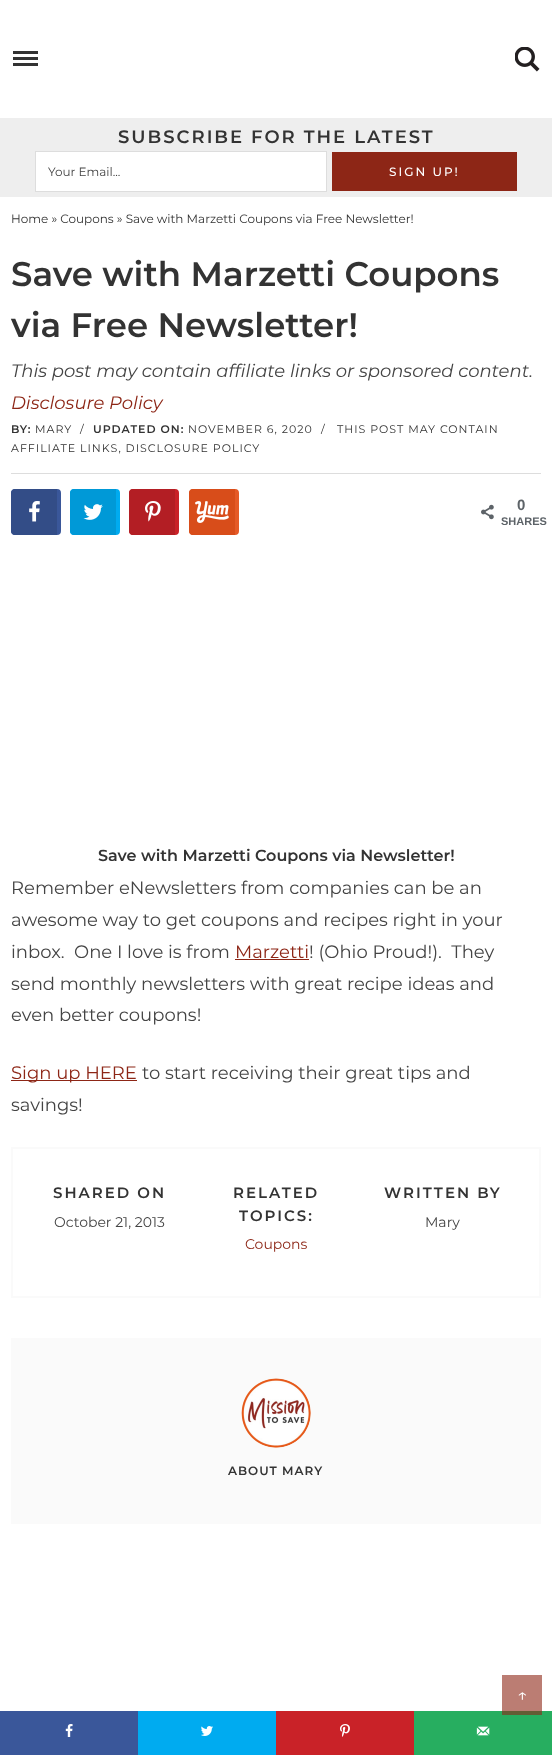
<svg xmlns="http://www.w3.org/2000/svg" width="552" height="1755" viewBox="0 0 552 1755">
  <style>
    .t1 { font: 600 18px Montserrat; letter-spacing: 2px; fill: #333; }
    .t2 { font: 12px Montserrat; fill: #444; }
    .t3 { font: 500 12px Montserrat; letter-spacing: 2px; fill: #fff; }
    .t4 { font: 12px Montserrat; fill: #333; }
    .t5 { font: 600 34px Montserrat; fill: #333; }
    .t6 { font: italic 18px Montserrat; fill: #444; }
    .t7 { font: italic 18px Montserrat; fill: #8d2616; }
    .t8 { font: 600 11px Montserrat; letter-spacing: 1px; fill: #333; }
    .t9 { font: 11px Montserrat; letter-spacing: 1px; fill: #333; }
    .t10 { font: bold 15px Liberation Sans; fill: #5d6368; }
    .t11 { font: bold 11px Liberation Sans; fill: #5d6368; }
    .t12 { font: 600 16px Montserrat; fill: #333; }
    .t13 { font: 18px Montserrat; fill: #444; }
    .t14 { font: 18px Montserrat; fill: #8d2616; }
    .t15 { font: 600 15px Montserrat; letter-spacing: 2px; fill: #333; }
    .t16 { font: 14px Montserrat; fill: #444; }
    .t17 { font: 14px Montserrat; fill: #8d2616; }
    .t18 { font: 600 12px Montserrat; letter-spacing: 1px; fill: #333; }
    .t19 { font: 18px Montserrat; fill: #fff; }
  </style>
  <rect width="100%" height="100%" fill="#fff"/>
  <rect x="502" y="1675" width="40" height="36" fill="#bb7d73"/>
  <rect x="13" y="57" width="25" height="3" fill="#333"/>
  <rect x="13" y="51" width="25" height="3" fill="#333"/>
  <rect x="13" y="63" width="25" height="3" fill="#333"/>
  <image x="515" y="47" width="25" height="25" href="images/1.png"/>
  <rect x="0" y="118" width="552" height="79" fill="#eee"/>
  <text x="118" y="143" class="t1">SUBSCRIBE FOR THE LATEST</text>
  <rect x="35.5" y="151.5" width="291" height="40" fill="#fff" stroke="#ddd"/>
  <text x="48" y="176" class="t2">Your Email...</text>
  <rect x="332" y="152" width="185" height="39" fill="#8d2616"/>
  <text x="389" y="176" class="t3">SIGN UP!</text>
  <text x="11" y="223" class="t4">Home » Coupons » Save with Marzetti Coupons via Free Newsletter!</text>
  <rect x="11" y="473" width="530" height="1" fill="#ddd"/>
  <text x="11" y="286" class="t5">Save with Marzetti Coupons</text>
  <text x="11" y="337" class="t5">via Free Newsletter!</text>
  <text x="11" y="377" class="t6">This post may contain affiliate links or sponsored content.</text>
  <text x="11" y="409" class="t7">Disclosure Policy</text>
  <text x="11" y="433" class="t8">BY:</text>
  <text x="35" y="433" class="t9">MARY</text>
  <text x="80" y="433" class="t9">/</text>
  <text x="93" y="433" class="t8">UPDATED ON:</text>
  <text x="188" y="433" class="t9">NOVEMBER 6, 2020</text>
  <text x="321" y="433" class="t9">/</text>
  <text x="337" y="433" class="t9">THIS POST MAY CONTAIN</text>
  <text x="11" y="452" class="t9">AFFILIATE LINKS, DISCLOSURE POLICY</text>
  <rect x="12" y="490" width="48" height="44" rx="3" fill="#3a579a" stroke="#3a579a" stroke-width="2"/>
  <path d="M15 490H56V534H15C13.5 534 12 532.5 12 531V493C12 491.5 13.5 490 15 490Z" fill="#334d87" stroke="#334d87" stroke-width="2"/>
  <image x="29" y="501" width="11" height="21" href="images/2.png"/>
  <rect x="71" y="490" width="48" height="44" rx="3" fill="#00abf0" stroke="#00abf0" stroke-width="2"/>
  <path d="M74 490H115V534H74C72.5 534 71 532.5 71 531V493C71 491.5 72.5 490 74 490Z" fill="#0099d7" stroke="#0099d7" stroke-width="2"/>
  <image x="83" y="504" width="20" height="16" href="images/3.png"/>
  <rect x="130" y="490" width="48" height="44" rx="3" fill="#c92228" stroke="#c92228" stroke-width="2"/>
  <path d="M133 490H174V534H133C131.5 534 130 532.5 130 531V493C130 491.5 131.5 490 133 490Z" fill="#b31e24" stroke="#b31e24" stroke-width="2"/>
  <image x="145" y="501" width="16" height="21" href="images/4.png"/>
  <rect x="190" y="490" width="48" height="44" rx="3" fill="#e55a27" stroke="#e55a27" stroke-width="2"/>
  <path d="M193 490H234V534H193C191.5 534 190 532.5 190 531V493C190 491.5 191.5 490 193 490Z" fill="#d84d1a" stroke="#d84d1a" stroke-width="2"/>
  <image x="195" y="501" width="34" height="22" href="images/5.png"/>
  <image x="481" y="504" width="13" height="16" href="images/6.png"/>
  <text x="517" y="510" class="t10">0</text>
  <text x="501" y="525" class="t11">SHARES</text>
  <text x="98" y="861" class="t12">Save with Marzetti Coupons via Newsletter!</text>
  <text x="11" y="894" class="t13">Remember eNewsletters from companies can be an</text>
  <text x="11" y="926" class="t13">awesome way to get coupons and recipes right in your</text>
  <text x="11" y="958" class="t13" xml:space="preserve">inbox.  One I love is from</text>
  <text x="235" y="958" class="t14">Marzetti</text>
  <rect x="235" y="959" width="74" height="1" fill="#8d2616"/>
  <text x="309" y="958" class="t13" xml:space="preserve">! (Ohio Proud!).  They</text>
  <text x="11" y="990" class="t13">send monthly newsletters with great recipe ideas and</text>
  <text x="11" y="1021" class="t13">even better coupons!</text>
  <rect x="11" y="1080" width="126" height="1" fill="#8d2616"/>
  <text x="11" y="1079" class="t14">Sign up HERE</text>
  <text x="142" y="1079" class="t13">to start receiving their great tips and</text>
  <text x="11" y="1111" class="t13">savings!</text>
  <rect x="12" y="1148" width="528" height="149" fill="none" stroke="#fafafa" stroke-width="2"/>
  <text x="53" y="1198" class="t15">SHARED ON</text>
  <text x="54" y="1227" class="t16">October 21, 2013</text>
  <text x="233" y="1198" class="t15">RELATED</text>
  <text x="239" y="1221" class="t15">TOPICS:</text>
  <text x="245" y="1249" class="t17">Coupons</text>
  <text x="384" y="1198" class="t15">WRITTEN BY</text>
  <text x="425" y="1227" class="t16">Mary</text>
  <rect x="11" y="1338" width="530" height="186" fill="#fafafa"/>
  <image x="241" y="1378" width="70" height="70" href="images/7.png"/>
  <text x="228" y="1475" class="t18">ABOUT MARY</text>
  <text x="517" y="1701" class="t19">↑</text>
  <rect x="0" y="1711" width="138" height="44" fill="#3a579a"/>
  <image x="65" y="1724" width="8" height="13" href="images/8.png"/>
  <rect x="138" y="1711" width="138" height="44" fill="#00abf0"/>
  <image x="201" y="1726" width="12" height="10" href="images/9.png"/>
  <rect x="276" y="1711" width="138" height="44" fill="#c92228"/>
  <image x="340" y="1724" width="10" height="13" href="images/10.png"/>
  <rect x="414" y="1711" width="138" height="44" fill="#27ae60"/>
  <rect x="502" y="1711" width="40" height="4" fill="#645c34"/>
  <image x="476" y="1726" width="14" height="10" href="images/11.png"/>
</svg>
